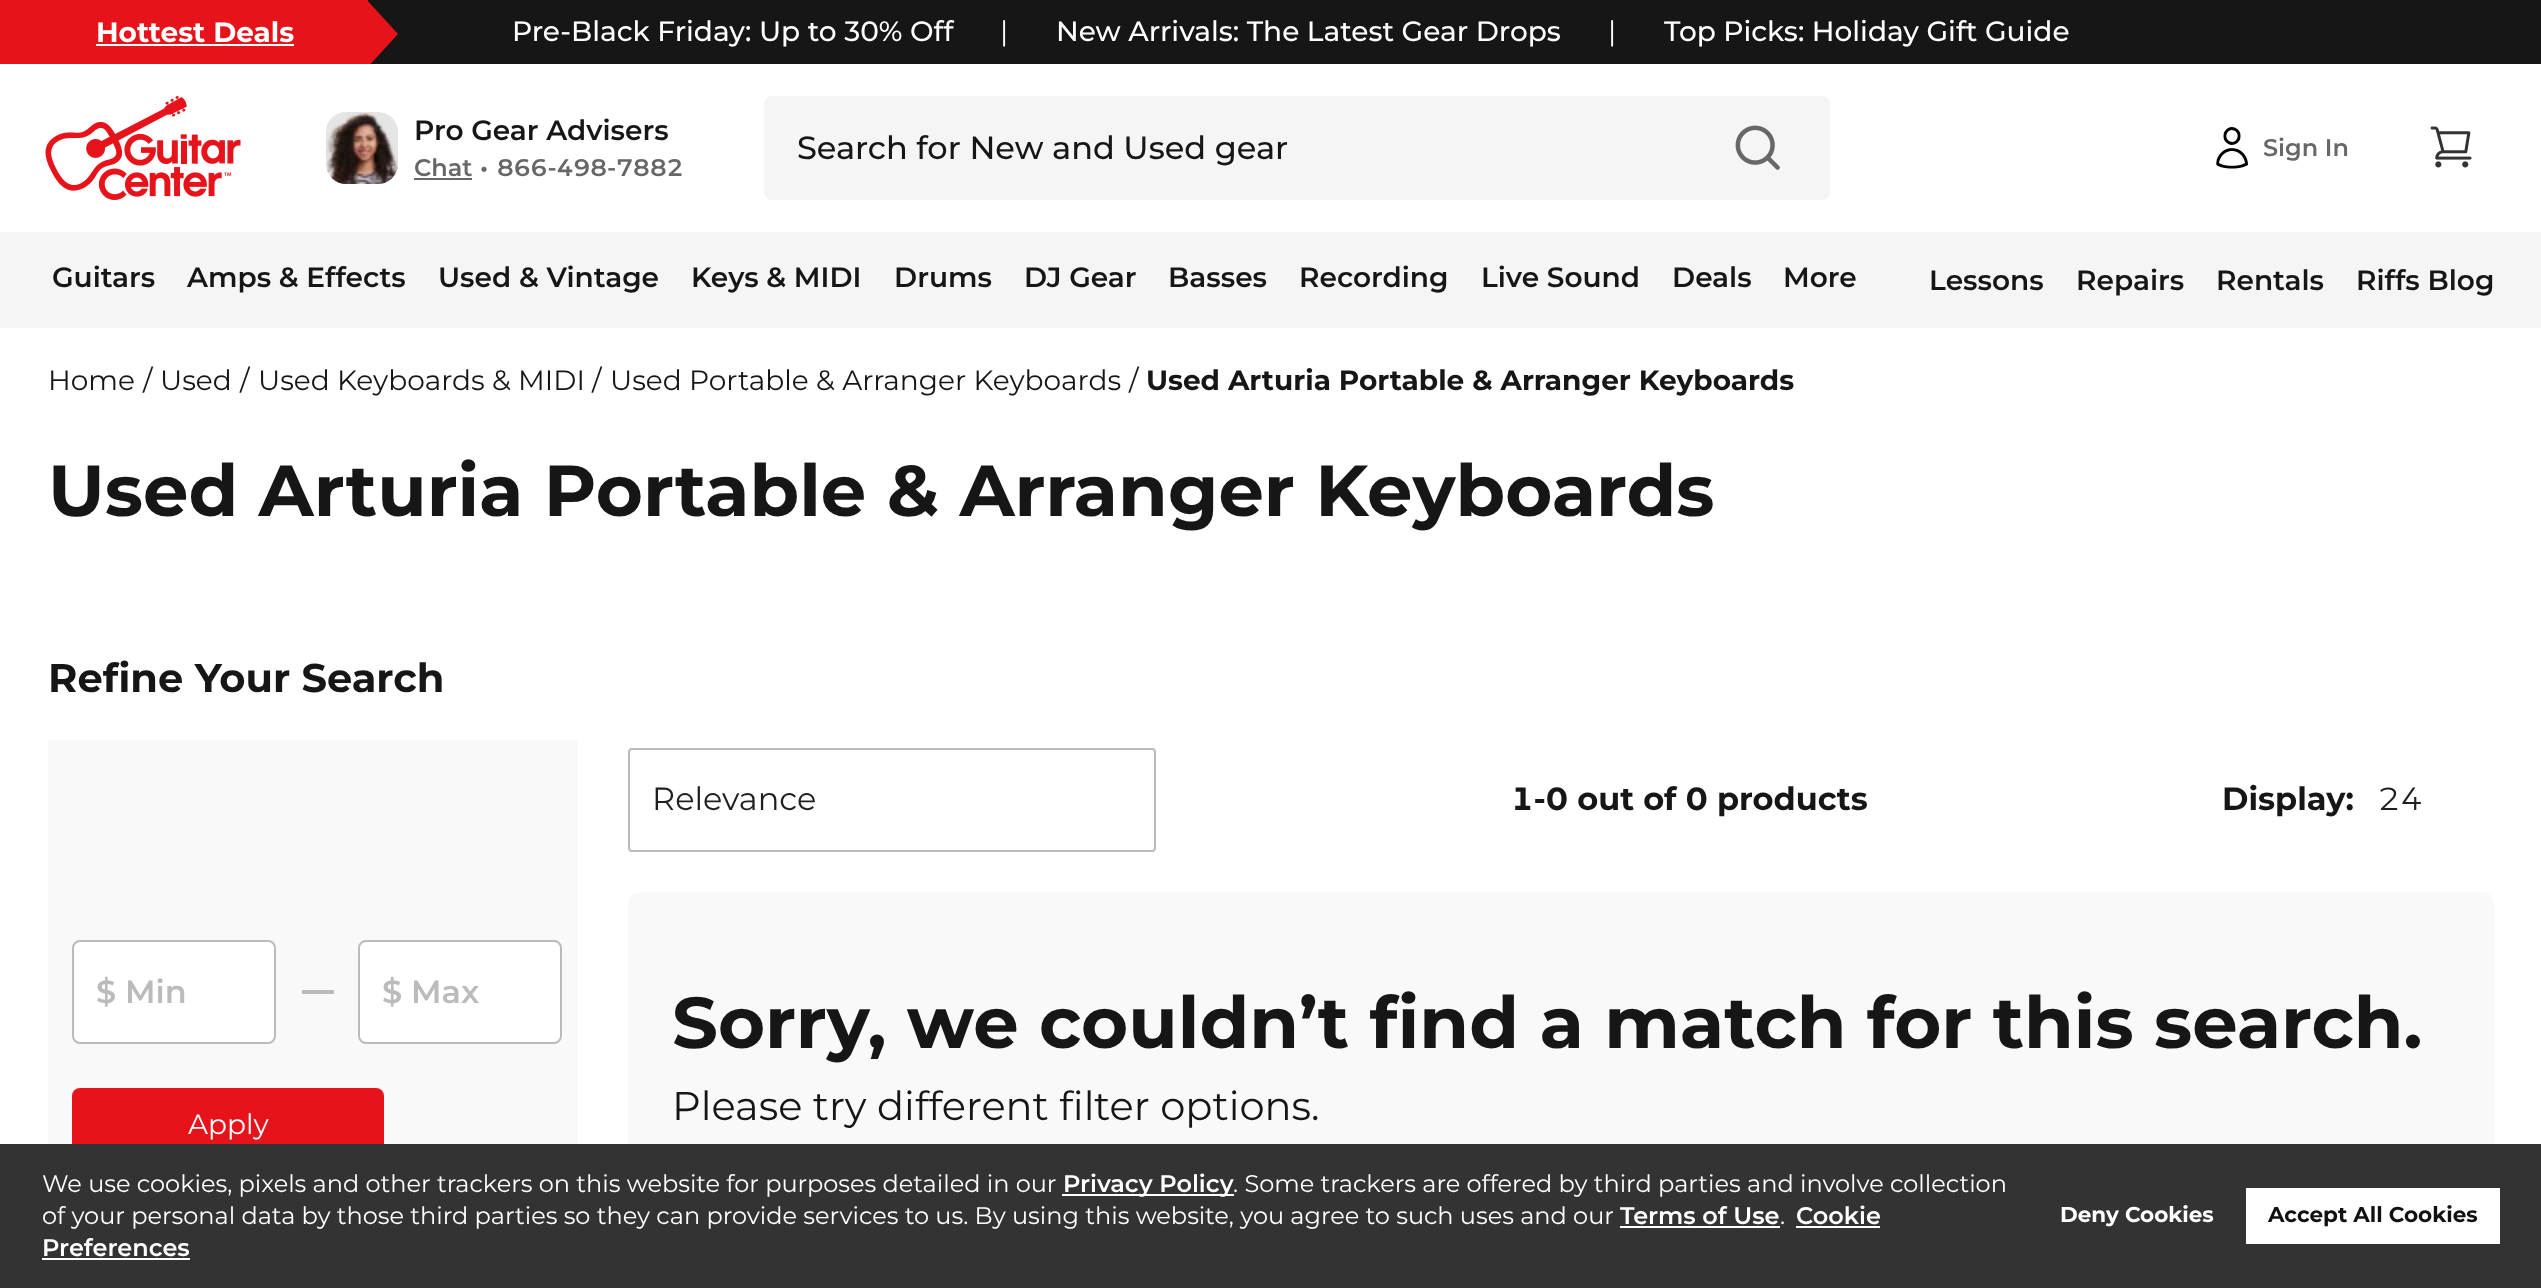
<svg xmlns="http://www.w3.org/2000/svg" width="2541" height="1288" viewBox="0 0 2541 1288">
  <style>
    .t1 { font: bold 28px 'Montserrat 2'; fill: #fff; }
    .t2 { font: 500 28px 'Montserrat 2'; fill: #fff; }
    .t3 { font: 28px 'Montserrat 2'; fill: #fff; }
    .t4 { font: 600 28px Montserrat; fill: #161616; }
    .t5 { font: 600 24px Montserrat; fill: #676767; }
    .t6 { font: 600 24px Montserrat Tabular; fill: #676767; }
    .t7 { font: 500 32px Montserrat; fill: #161616; }
    .t8 { font: 28px Montserrat; fill: #161616; }
    .t9 { font: bold 28px Montserrat; fill: #161616; }
    .t10 { font: bold 72px Montserrat; fill: #161616; }
    .t11 { font: bold 40px Montserrat; fill: #161616; }
    .t12 { font: 600 32px Montserrat; fill: #bbb; }
    .t13 { font: 28px Montserrat; fill: #fff; }
    .t14 { font: 32px Montserrat; fill: #1f1f1f; }
    .t15 { font: bold 32px Montserrat Tabular; fill: #161616; }
    .t16 { font: bold 32px Montserrat; fill: #161616; }
    .t17 { font: 32px Montserrat Tabular; fill: #1f1f1f; }
    .t18 { font: 40px Montserrat; fill: #161616; }
    .t19 { font: 24px 'Montserrat 2'; fill: #fff; }
    .t20 { font: 600 24px 'Montserrat 2'; fill: #fff; }
    .t21 { font: bold 21.5px 'Montserrat 2'; fill: #fff; }
    .t22 { font: bold 21.5px 'Montserrat 2'; fill: #121010; }
  </style>
  <defs>
    <clipPath id="clip1"><rect x="0" y="0" width="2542" height="64"/></clipPath>
  </defs>
  <rect width="100%" height="100%" fill="#fff"/>
  <rect x="368" y="0" width="2173" height="64" fill="#161616"/>
  <rect x="0" y="0" width="368" height="64" fill="#e7131a"/>
  <text x="96" y="42" class="t1">Hottest Deals</text>
  <rect x="96" y="44" width="198" height="2" fill="#fff"/>
  <g clip-path="url(#clip1)">
    <path d="M366-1V69L398 34Z" fill="#e7131a"/>
  </g>
  <text x="512" y="41" class="t2">Pre-Black Friday: Up to 30% Off</text>
  <text x="1000" y="41" class="t3">|</text>
  <text x="1056" y="41" class="t2">New Arrivals: The Latest Gear Drops</text>
  <text x="1608" y="41" class="t3">|</text>
  <text x="1664" y="41" class="t2">Top Picks: Holiday Gift Guide</text>
  <image x="45" y="96" width="196" height="104" href="images/1.png"/>
  <image x="326" y="112" width="72" height="72" href="images/2.png"/>
  <text x="414" y="140" class="t4">Pro Gear Advisers</text>
  <text x="414" y="176" class="t5">Chat</text>
  <rect x="414" y="178" width="58" height="2" fill="#676767"/>
  <text x="480" y="176" class="t5">•</text>
  <text x="497" y="176" class="t6">866-498-7882</text>
  <rect x="764" y="96" width="1066" height="104" rx="8" fill="#f5f5f5"/>
  <text x="797" y="159" class="t7">Search for New and Used gear</text>
  <image x="1735" y="125" width="45" height="45" href="images/3.png"/>
  <image x="2216" y="127" width="32" height="42" href="images/4.png"/>
  <text x="2263" y="156" class="t5">Sign In</text>
  <image x="2430" y="126" width="42" height="42" href="images/5.png"/>
  <rect x="0" y="232" width="2541" height="96" fill="#f5f5f5"/>
  <text x="52" y="287" class="t4">Guitars</text>
  <text x="187" y="287" class="t4">Amps &amp; Effects</text>
  <text x="438" y="287" class="t4">Used &amp; Vintage</text>
  <text x="691" y="287" class="t4">Keys &amp; MIDI</text>
  <text x="894" y="287" class="t4">Drums</text>
  <text x="1024" y="287" class="t4">DJ Gear</text>
  <text x="1168" y="287" class="t4">Basses</text>
  <text x="1299" y="287" class="t4">Recording</text>
  <text x="1481" y="287" class="t4">Live Sound</text>
  <text x="1672" y="287" class="t4">Deals</text>
  <text x="1783" y="287" class="t4">More</text>
  <text x="1929" y="290" class="t4">Lessons</text>
  <text x="2076" y="290" class="t4">Repairs</text>
  <text x="2216" y="290" class="t4">Rentals</text>
  <text x="2356" y="290" class="t4">Riffs Blog</text>
  <text x="48" y="390" class="t8">Home</text>
  <text x="143" y="390" class="t8">/</text>
  <text x="160" y="390" class="t8">Used</text>
  <text x="240" y="390" class="t8">/</text>
  <text x="258" y="390" class="t8">Used Keyboards &amp; MIDI</text>
  <text x="592" y="390" class="t8">/</text>
  <text x="610" y="390" class="t8">Used Portable &amp; Arranger Keyboards</text>
  <text x="1129" y="390" class="t8">/</text>
  <text x="1146" y="390" class="t9">Used Arturia Portable &amp; Arranger Keyboards</text>
  <text x="48" y="516" class="t10">Used Arturia Portable &amp; Arranger Keyboards</text>
  <text x="48" y="692" class="t11">Refine Your Search</text>
  <rect x="48" y="740" width="530" height="404" fill="#f9f9f9"/>
  <rect x="73" y="941" width="202" height="102" rx="7" fill="#fff" stroke="#bbb" stroke-width="2"/>
  <text x="96" y="1003" class="t12">$ Min</text>
  <rect x="302" y="990" width="32" height="4" fill="#bbb"/>
  <rect x="359" y="941" width="202" height="102" rx="7" fill="#fff" stroke="#bbb" stroke-width="2"/>
  <text x="382" y="1003" class="t12">$ Max</text>
  <rect x="72" y="1088" width="312" height="72" rx="8" fill="#e7131a"/>
  <text x="188" y="1134" class="t13">Apply</text>
  <rect x="629" y="749" width="526" height="102" rx="3" fill="none" stroke="#bbb" stroke-width="2"/>
  <text x="652" y="810" class="t14">Relevance</text>
  <text x="1511" y="810" class="t15">1-0 out of 0 products</text>
  <text x="2222" y="810" class="t16">Display:</text>
  <text x="2378" y="810" class="t17">24</text>
  <rect x="628" y="892" width="1866" height="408" rx="12" fill="#f9f9f9"/>
  <text x="672" y="1048" class="t10">Sorry, we couldn’t find a match for this search.</text>
  <text x="672" y="1120" class="t18">Please try different filter options.</text>
  <rect x="0" y="1144" width="2541" height="144" fill="#333"/>
  <text x="42" y="1192" class="t19">We use cookies, pixels and other trackers on this website for purposes detailed in our</text>
  <rect x="1062" y="1194" width="172" height="2" fill="#fff"/>
  <text x="1063" y="1192" class="t20">Privacy Policy</text>
  <text x="1233" y="1192" class="t19">. Some trackers are offered by third parties and involve collection</text>
  <text x="42" y="1224" class="t19">of your personal data by those third parties so they can provide services to us. By using this website, you agree to such uses and our</text>
  <text x="1620" y="1224" class="t20">Terms of Use</text>
  <rect x="1620" y="1226" width="160" height="2" fill="#fff"/>
  <text x="1780" y="1224" class="t19">.</text>
  <text x="1796" y="1224" class="t20">Cookie</text>
  <rect x="1796" y="1226" width="84" height="2" fill="#fff"/>
  <text x="42" y="1256" class="t20">Preferences</text>
  <rect x="42" y="1258" width="148" height="2" fill="#fff"/>
  <text x="2060" y="1222" class="t21">Deny Cookies</text>
  <rect x="2246" y="1188" width="254" height="56" fill="#fff"/>
  <text x="2268" y="1222" class="t22">Accept All Cookies</text>
</svg>
